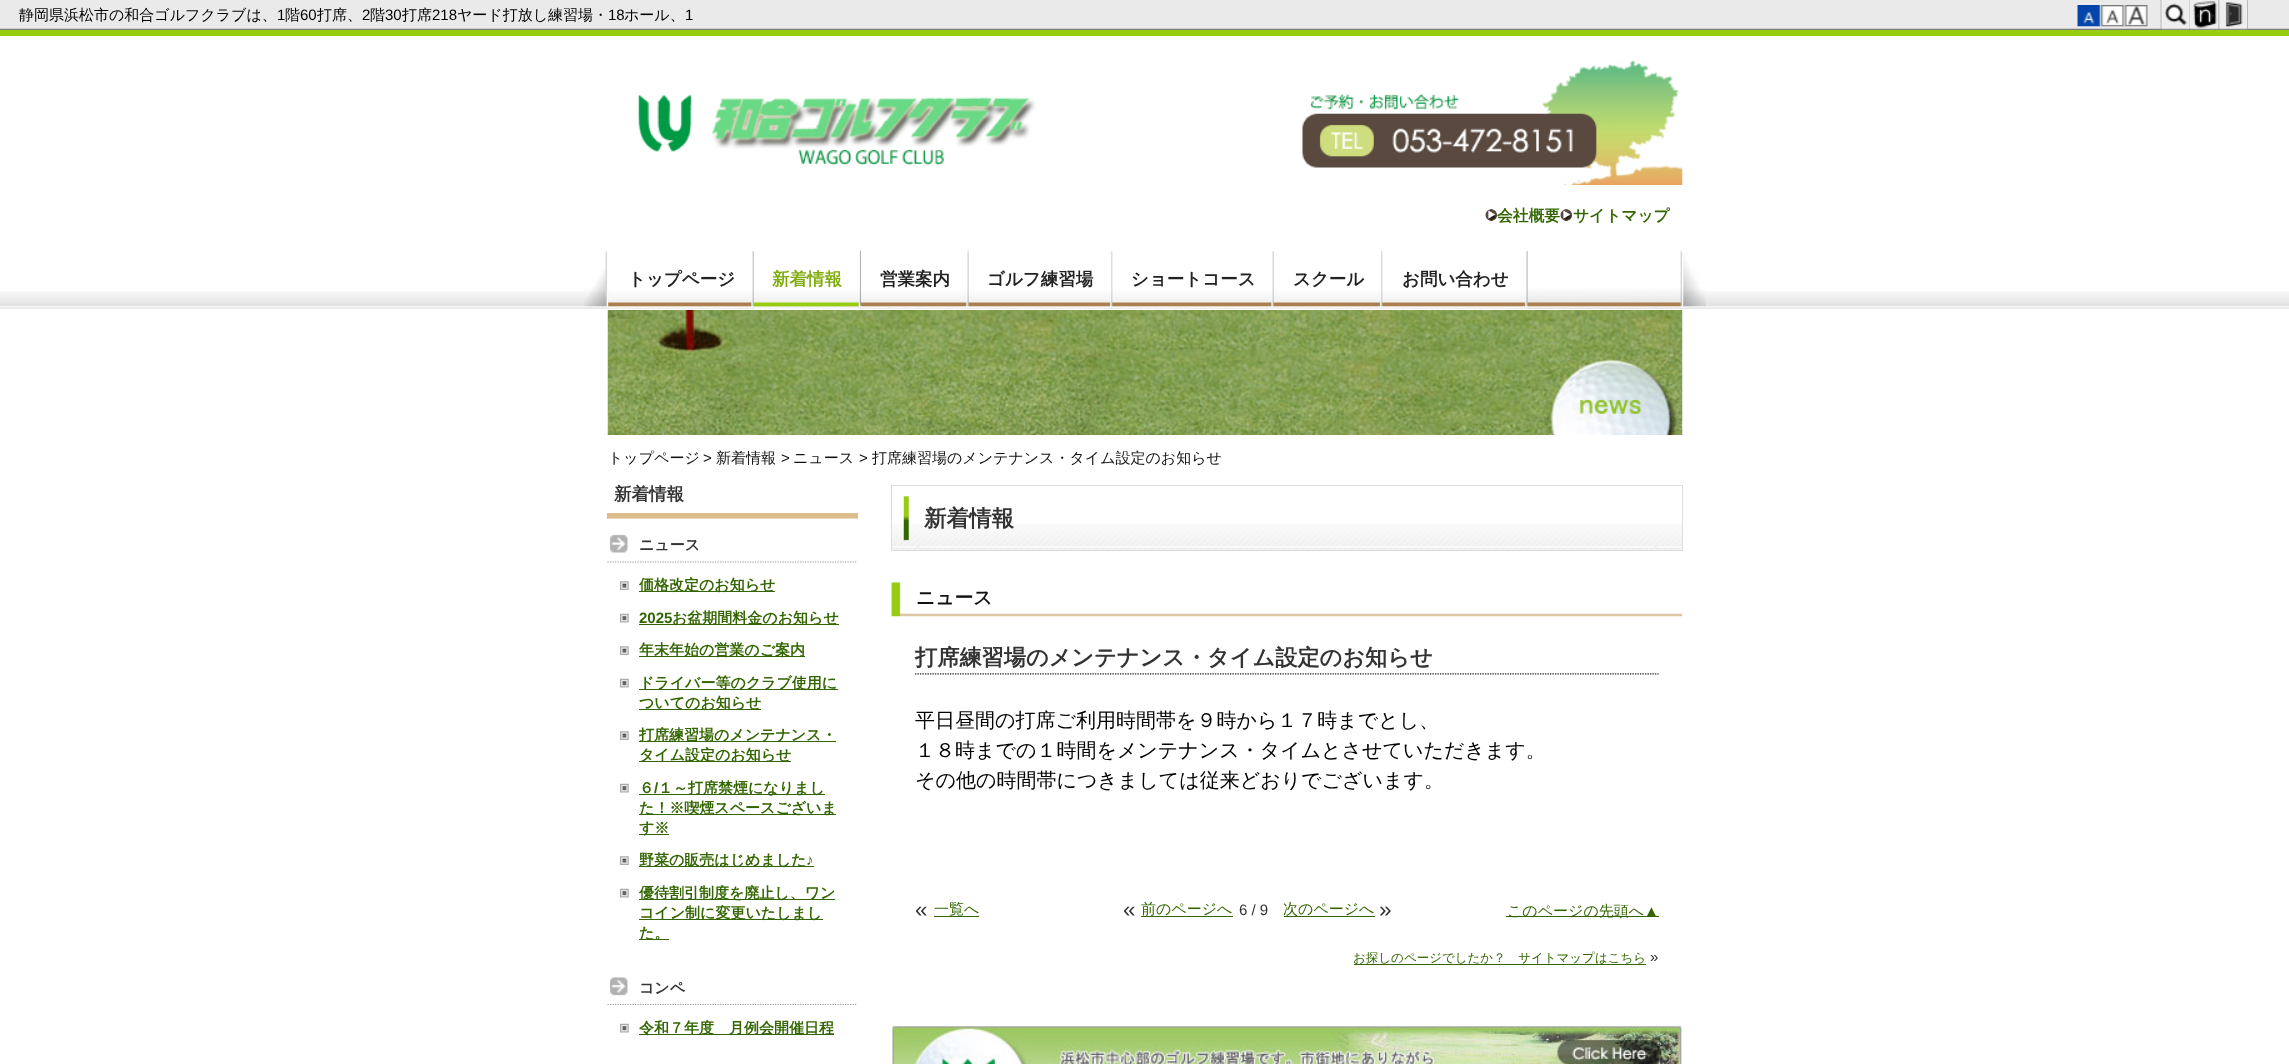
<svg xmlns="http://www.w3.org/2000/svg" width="2289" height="1064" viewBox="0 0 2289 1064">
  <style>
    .t1 { font: 500 15px WenQuanYi Zen Hei; fill: #000; }
    .t2 { font: 15px Liberation Sans; fill: #000; }
    .t3 { font: bold 15.75px WenQuanYi Zen Hei; fill: #360; }
    .t4 { font: bold 17.5px WenQuanYi Zen Hei; fill: #222; }
    .t5 { font: bold 17.5px WenQuanYi Zen Hei; fill: #7fac0c; }
    .t6 { font: 500 15px WenQuanYi Zen Hei; fill: #111; }
    .t7 { font: 15px Liberation Sans; fill: #111; }
    .t8 { font: bold 17.5px WenQuanYi Zen Hei; fill: #333; }
    .t9 { font: bold 15px WenQuanYi Zen Hei; fill: #333; }
    .t10 { font: bold 15px WenQuanYi Zen Hei; fill: #360; }
    .t11 { font: bold 15px Liberation Sans; fill: #360; }
    .t12 { font: bold 22.5px WenQuanYi Zen Hei; fill: #333; }
    .t13 { font: bold 18.75px WenQuanYi Zen Hei; fill: #111; }
    .t14 { font: bold 22.2px WenQuanYi Zen Hei; fill: #333; }
    .t15 { font: 500 20px WenQuanYi Zen Hei; fill: #000; }
    .t16 { font: 22.5px Liberation Sans; fill: #333; }
    .t17 { font: 500 15px WenQuanYi Zen Hei; fill: #360; }
    .t18 { font: 15px Liberation Sans; fill: #333; }
    .t19 { font: 15px Liberation Sans; fill: #360; }
    .t20 { font: 500 12.5px WenQuanYi Zen Hei; fill: #360; }
  </style>
  <rect width="100%" height="100%" fill="#fff"/>
  <image x="0" y="0" width="2289" height="30" href="images/1.png"/>
  <text x="19" y="20" class="t1">静岡県浜松市の和合ゴルフクラブは、</text>
  <text x="277" y="20" class="t2">1</text>
  <text x="285" y="20" class="t1">階</text>
  <text x="300" y="20" class="t2">60</text>
  <text x="317" y="20" class="t1">打席、</text>
  <text x="362" y="20" class="t2">2</text>
  <text x="370" y="20" class="t1">階</text>
  <text x="385" y="20" class="t2">30</text>
  <text x="402" y="20" class="t1">打席</text>
  <text x="432" y="20" class="t2">218</text>
  <text x="457" y="20" class="t1">ヤード打放し練習場・</text>
  <text x="608" y="20" class="t2">18</text>
  <text x="624" y="20" class="t1">ホール、</text>
  <text x="685" y="20" class="t2">1</text>
  <image x="2077" y="5" width="24" height="22" href="images/2.png"/>
  <image x="2101" y="5" width="24" height="22" href="images/3.png"/>
  <image x="2124" y="5" width="24" height="22" href="images/4.png"/>
  <image x="2160" y="0" width="30" height="30" href="images/5.png"/>
  <image x="2161" y="0" width="29" height="30" href="images/6.png"/>
  <image x="2190" y="29" width="29" height="1" href="images/7.png"/>
  <image x="2190" y="0" width="29" height="29" href="images/8.png"/>
  <image x="2218" y="0" width="30" height="30" href="images/9.png"/>
  <image x="2218" y="0" width="30" height="29" href="images/10.png"/>
  <rect x="0" y="30" width="2289" height="6" fill="#98cc11"/>
  <image x="638" y="60" width="1045" height="125" href="images/11.png"/>
  <image x="1485" y="209" width="13" height="13" href="images/12.png"/>
  <text x="1497" y="221" class="t3">会社概要</text>
  <image x="1560" y="209" width="13" height="13" href="images/12.png"/>
  <text x="1573" y="221" class="t3">サイトマップ</text>
  <image x="0" y="291" width="2289" height="18" href="images/13.png"/>
  <rect x="584" y="291" width="1122" height="18" fill="#fff"/>
  <image x="584" y="250" width="1122" height="59" href="images/14.png"/>
  <image x="608" y="250" width="146" height="59" href="images/15.png"/>
  <image x="753" y="250" width="109" height="59" href="images/17.png"/>
  <image x="608" y="250" width="146" height="59" href="images/16.png"/>
  <text x="628" y="285" class="t4">トップページ</text>
  <text x="772" y="285" class="t5">新着情報</text>
  <image x="861" y="250" width="108" height="59" href="images/18.png"/>
  <image x="968" y="250" width="145" height="59" href="images/20.png"/>
  <image x="861" y="250" width="108" height="59" href="images/19.png"/>
  <text x="880" y="285" class="t4">営業案内</text>
  <image x="1112" y="250" width="162" height="59" href="images/22.png"/>
  <image x="968" y="250" width="145" height="59" href="images/21.png"/>
  <text x="987" y="285" class="t4">ゴルフ練習場</text>
  <image x="1273" y="250" width="110" height="59" href="images/24.png"/>
  <image x="1112" y="250" width="162" height="59" href="images/23.png"/>
  <text x="1131" y="285" class="t4">ショートコース</text>
  <image x="1382" y="250" width="146" height="59" href="images/26.png"/>
  <image x="1273" y="250" width="110" height="59" href="images/25.png"/>
  <text x="1293" y="285" class="t4">スクール</text>
  <image x="1382" y="250" width="146" height="59" href="images/27.png"/>
  <text x="1402" y="285" class="t4">お問い合わせ</text>
  <image x="607" y="310" width="1076" height="125" href="images/28.png"/>
  <text x="608" y="463" class="t6">トップページ</text>
  <text x="703" y="463" class="t7">&gt;</text>
  <text x="716" y="463" class="t6">新着情報</text>
  <text x="781" y="463" class="t7">&gt;</text>
  <text x="793" y="463" class="t6">ニュース</text>
  <text x="859" y="463" class="t7">&gt;</text>
  <text x="872" y="463" class="t6">打席練習場のメンテナンス・タイム設定のお知らせ</text>
  <rect x="607" y="513" width="251" height="6" fill="#ddbc8c"/>
  <text x="614" y="500" class="t8">新着情報</text>
  <image x="607" y="518" width="251" height="35" href="images/29.png"/>
  <image x="607" y="518" width="251" height="35" href="images/30.png"/>
  <text x="639" y="550" class="t9">ニュース</text>
  <path d="M607.5 562H857.5" fill="none" stroke="#999" stroke-width="1.2" stroke-dasharray="1.25 1.25"/>
  <image x="620" y="581" width="9" height="9" href="images/31.png"/>
  <rect x="639" y="591" width="136" height="1" fill="#360"/>
  <text x="639" y="590" class="t10">価格改定のお知らせ</text>
  <image x="620" y="613" width="9" height="10" href="images/32.png"/>
  <text x="639" y="623" class="t11">2025</text>
  <rect x="639" y="624" width="200" height="1" fill="#360"/>
  <text x="672" y="623" class="t10">お盆期間料金のお知らせ</text>
  <image x="620" y="646" width="9" height="9" href="images/31.png"/>
  <rect x="639" y="656" width="166" height="1" fill="#360"/>
  <text x="639" y="655" class="t10">年末年始の営業のご案内</text>
  <image x="620" y="678" width="9" height="10" href="images/32.png"/>
  <rect x="639" y="689" width="199" height="1" fill="#360"/>
  <text x="639" y="688" class="t10">ドライバー等のクラブ使用に</text>
  <rect x="639" y="709" width="122" height="1" fill="#360"/>
  <text x="639" y="708" class="t10">ついてのお知らせ</text>
  <image x="620" y="731" width="9" height="9" href="images/31.png"/>
  <rect x="639" y="741" width="197" height="1" fill="#360"/>
  <text x="639" y="740" class="t10">打席練習場のメンテナンス・</text>
  <rect x="639" y="761" width="152" height="1" fill="#360"/>
  <text x="639" y="760" class="t10">タイム設定のお知らせ</text>
  <image x="620" y="783" width="9" height="10" href="images/32.png"/>
  <text x="639" y="793" class="t10">６</text>
  <rect x="639" y="794" width="186" height="1" fill="#360"/>
  <text x="654" y="793" class="t11">/</text>
  <text x="658" y="793" class="t10">１～打席禁煙になりまし</text>
  <rect x="639" y="814" width="197" height="1" fill="#360"/>
  <text x="639" y="813" class="t10">た！※喫煙スペースございま</text>
  <rect x="639" y="834" width="30" height="1" fill="#360"/>
  <text x="639" y="833" class="t10">す※</text>
  <image x="620" y="856" width="9" height="9" href="images/31.png"/>
  <rect x="639" y="866" width="175" height="1" fill="#360"/>
  <text x="639" y="865" class="t10">野菜の販売はじめました</text>
  <text x="806" y="865" class="t11">♪</text>
  <image x="620" y="888" width="9" height="10" href="images/32.png"/>
  <rect x="639" y="899" width="196" height="1" fill="#360"/>
  <text x="639" y="898" class="t10">優待割引制度を廃止し、ワン</text>
  <rect x="639" y="919" width="184" height="1" fill="#360"/>
  <text x="639" y="918" class="t10">コイン制に変更いたしまし</text>
  <rect x="639" y="939" width="30" height="1" fill="#360"/>
  <text x="639" y="938" class="t10">た。</text>
  <image x="609" y="977" width="37" height="19" href="images/33.png"/>
  <text x="639" y="993" class="t9">コンペ</text>
  <path d="M607.5 1004.5H857.5" fill="none" stroke="#999" stroke-width="1.2" stroke-dasharray="1.25 1.25"/>
  <image x="620" y="1023" width="9" height="10" href="images/34.png"/>
  <rect x="639" y="1034" width="195" height="1" fill="#360"/>
  <text x="639" y="1033" class="t10">令和７年度　月例会開催日程</text>
  <image x="892" y="524" width="790" height="26" href="images/35.png"/>
  <rect x="891.5" y="485.5" width="791" height="65" fill="none" stroke="#ddd"/>
  <image x="903" y="496" width="6" height="45" href="images/36.png"/>
  <text x="924" y="526" class="t12">新着情報</text>
  <image x="891" y="582" width="792" height="35" href="images/37.png"/>
  <text x="916" y="604" class="t13">ニュース</text>
  <image x="915" y="673" width="744" height="2" href="images/38.png"/>
  <text x="915" y="665" class="t14">打席練習場のメンテナンス・タイム設定のお知らせ</text>
  <text x="915" y="727" class="t15">平日昼間の打席ご利用時間帯を９時から１７時までとし、</text>
  <text x="915" y="757" class="t15">１８時までの１時間をメンテナンス・タイムとさせていただきます。</text>
  <text x="915" y="787" class="t15">その他の時間帯につきましては従来どおりでございます。</text>
  <text x="915" y="917" class="t16">«</text>
  <text x="934" y="914" class="t17">一覧へ</text>
  <rect x="934" y="916" width="45" height="1" fill="#360"/>
  <text x="1123" y="917" class="t16">«</text>
  <text x="1141" y="914" class="t17">前のページへ</text>
  <rect x="1141" y="916" width="92" height="1" fill="#360"/>
  <text x="1239" y="915" class="t18">6 / 9</text>
  <rect x="1284" y="916" width="91" height="1" fill="#360"/>
  <text x="1283" y="914" class="t17">次のページへ</text>
  <text x="1379" y="917" class="t16">»</text>
  <rect x="1506" y="916" width="153" height="1" fill="#360"/>
  <text x="1507" y="916" class="t17">このページの先頭へ</text>
  <text x="1644" y="916" class="t19">▲</text>
  <text x="1353" y="962" class="t20">お探しのページでしたか？　サイトマップはこちら</text>
  <rect x="1354" y="964" width="292" height="1" fill="#360"/>
  <text x="1650" y="962" class="t18">»</text>
  <image x="891" y="1025" width="791" height="39" href="images/39.png"/>
</svg>
